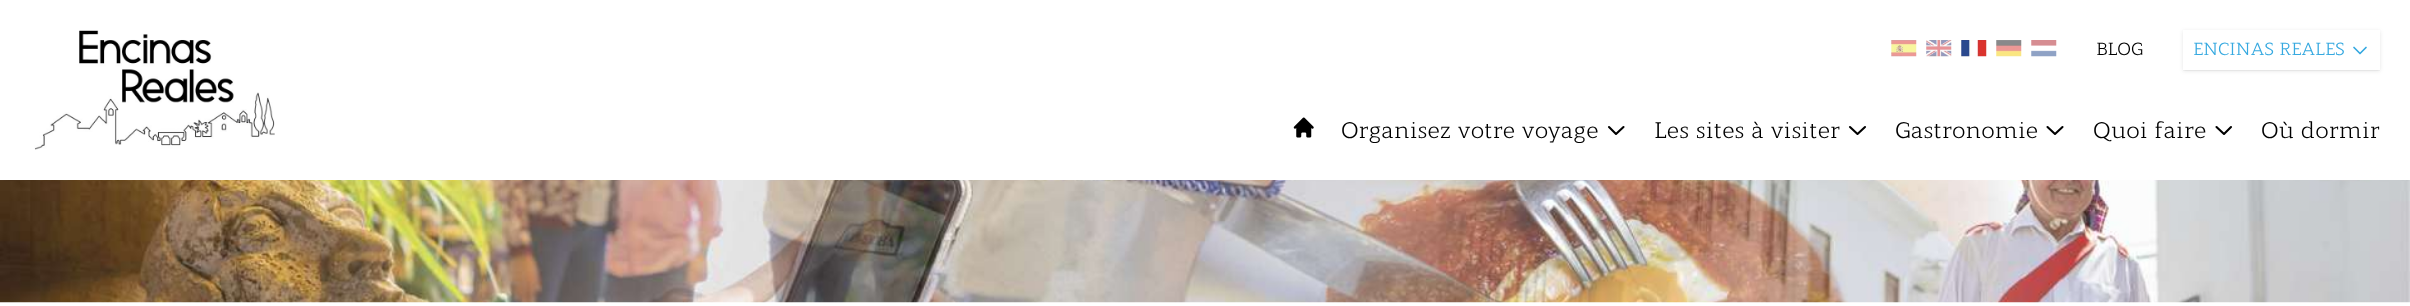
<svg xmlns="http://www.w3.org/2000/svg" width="2410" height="306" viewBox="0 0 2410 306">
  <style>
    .t1 { font: 17.5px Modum; fill: #000; }
    .t2 { font: 17.5px Modum; fill: #36a9e0; }
    .t3 { font: 22.5px Modum; fill: #000; }
  </style>
  <defs>
    <clipPath id="clip1"><rect x="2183" y="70" width="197" height="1"/></clipPath>
    <clipPath id="clip2"><path d="M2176 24H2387V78H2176ZM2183 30H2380V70H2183Z" clip-rule="evenodd"/></clipPath>
  </defs>
  <rect width="100%" height="100%" fill="#fff"/>
  <image x="34" y="30" width="241" height="120" href="images/1.png"/>
  <image x="1891" y="40" width="26" height="17" href="images/2.png"/>
  <image x="1926" y="40" width="26" height="17" href="images/3.png"/>
  <image x="1961" y="40" width="26" height="17" href="images/4.png"/>
  <image x="1996" y="40" width="26" height="17" href="images/5.png"/>
  <image x="2031" y="40" width="26" height="17" href="images/6.png"/>
  <text x="2096" y="55" class="t1">BLOG</text>
  <g clip-path="url(#clip1)">
    <rect x="2183" y="31" width="197" height="40" fill="#0000000f" filter="blur(1px)"/>
  </g>
  <g clip-path="url(#clip2)">
    <rect x="2183" y="31" width="197" height="40" fill="#0000001a" filter="blur(2px)"/>
  </g>
  <text x="2193" y="55" class="t2">ENCINAS REALES</text>
  <path d="M2366 47.5L2360 53.5L2354 47.5" fill="none" stroke="#36a9e0" stroke-width="1.7" stroke-linecap="round" stroke-linejoin="round"/>
  <image x="1293" y="117" width="21" height="21" href="images/7.png"/>
  <text x="1341" y="138" class="t3">Organisez votre voyage</text>
  <path d="M1623.5 127L1616 134L1609 127" fill="none" stroke="#000" stroke-width="2.1" stroke-linecap="round" stroke-linejoin="round"/>
  <text x="1654" y="138" class="t3">Les sites à visiter</text>
  <path d="M1865 127L1857.5 134L1850 127" fill="none" stroke="#000" stroke-width="2.1" stroke-linecap="round" stroke-linejoin="round"/>
  <text x="1895" y="138" class="t3">Gastronomie</text>
  <path d="M2062.5 127L2055 134L2047.5 127" fill="none" stroke="#000" stroke-width="2.1" stroke-linecap="round" stroke-linejoin="round"/>
  <text x="2093" y="138" class="t3">Quoi faire</text>
  <path d="M2231 127L2224 134L2216.5 127" fill="none" stroke="#000" stroke-width="2.1" stroke-linecap="round" stroke-linejoin="round"/>
  <text x="2261" y="138" class="t3">Où dormir</text>
  <image x="0" y="180" width="2410" height="123" href="images/8.png"/>
</svg>
